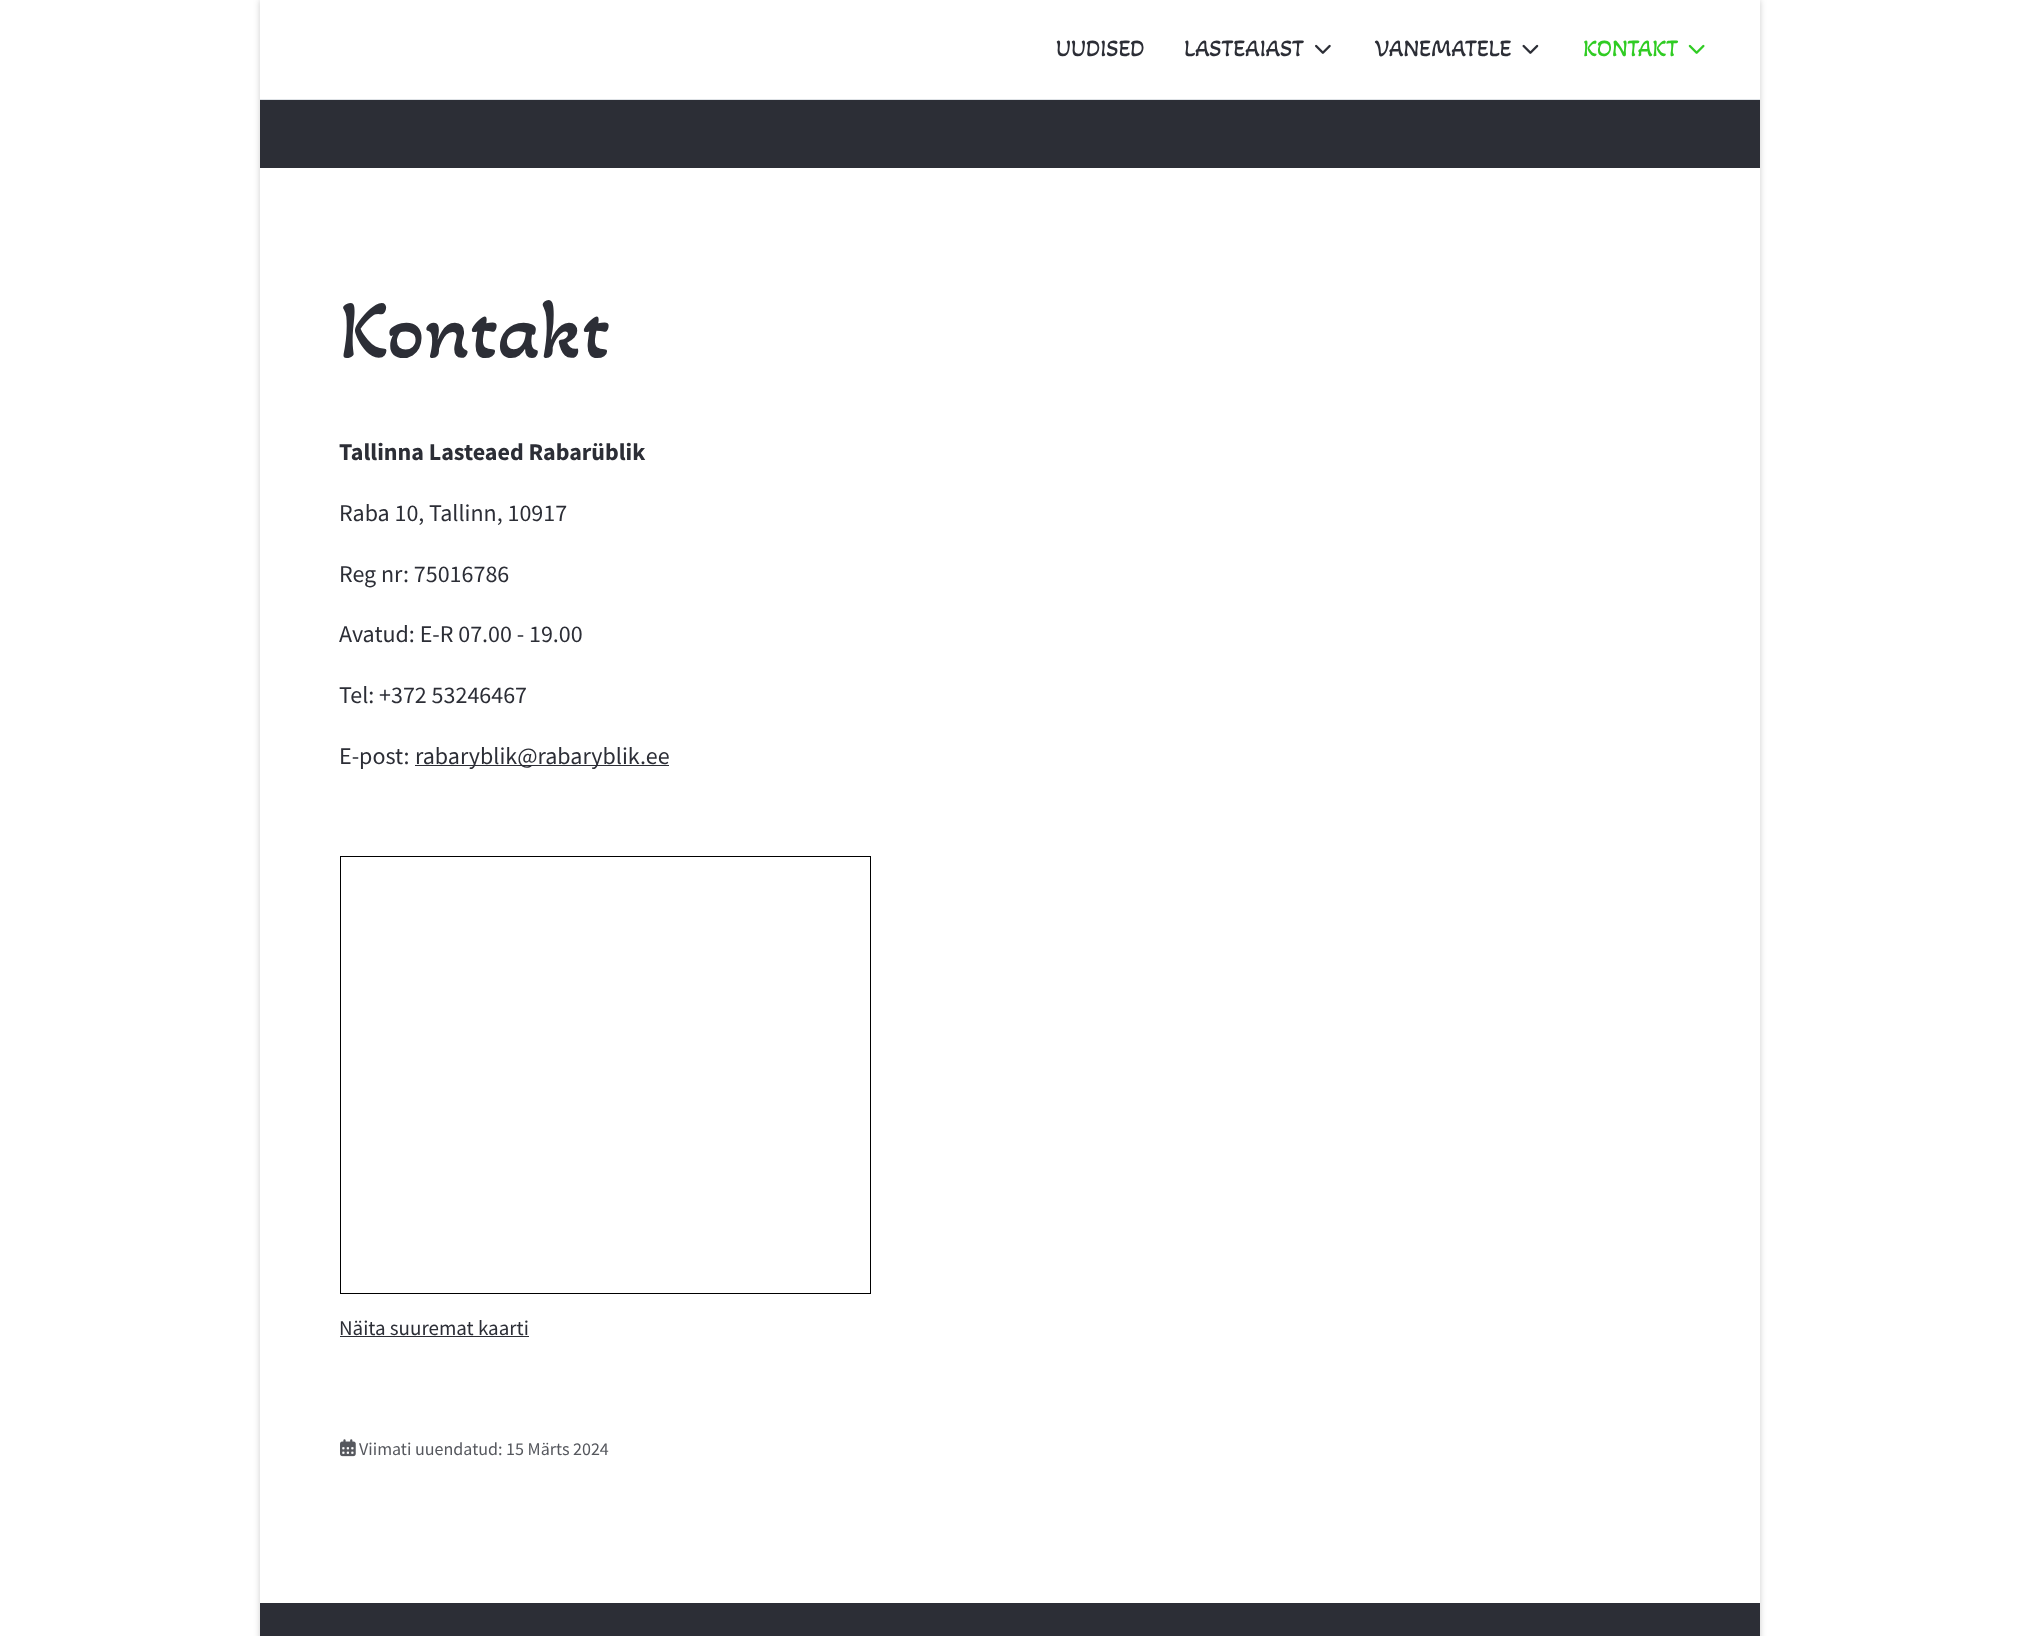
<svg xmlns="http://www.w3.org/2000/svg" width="2018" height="1636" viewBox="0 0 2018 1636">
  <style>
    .t1 { font: 24px Akaya Telivigala; fill: #2c2e36; }
    .t2 { font: 24px Akaya Telivigala; fill: #30cc23; }
    .t3 { font: 84px Akaya Telivigala; fill: #2c2e36; }
    .t4 { font: bold 24px Source Sans Pro; fill: #2c2e36; }
    .t5 { font: 24px Source Sans Pro; fill: #2c2e36; }
    .t6 { font: 21px Source Sans Pro; fill: #2c2e36; }
    .t7 { font: 18px Source Sans Pro; fill: #56585e; }
  </style>
  <defs>
    <clipPath id="clip1"><path d="M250 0H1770V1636H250ZM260 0H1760V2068H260Z" clip-rule="evenodd"/></clipPath>
  </defs>
  <rect width="100%" height="100%" fill="#fff"/>
  <g clip-path="url(#clip1)">
    <rect x="260" y="0" width="1500" height="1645" fill="#00000033" filter="blur(3px)"/>
  </g>
  <rect x="260" y="99" width="1500" height="1" fill="#dee2e6"/>
  <text x="1056" y="56" class="t1">UUDISED</text>
  <text x="1184" y="56" class="t1">LASTEAIAST</text>
  <image x="1315" y="44" width="16" height="10" href="images/1.png"/>
  <text x="1375" y="56" class="t1">VANEMATELE</text>
  <image x="1522" y="44" width="17" height="10" href="images/2.png"/>
  <text x="1583" y="56" class="t2">KONTAKT</text>
  <image x="1688" y="44" width="17" height="10" href="images/3.png"/>
  <rect x="260" y="100" width="1500" height="68" fill="#2c2e36"/>
  <text x="339" y="357" class="t3">Kontakt</text>
  <text x="339" y="460" class="t4">Tallinna Lasteaed Rabarüblik</text>
  <text x="339" y="521" class="t5">Raba 10, Tallinn, 10917</text>
  <text x="339" y="582" class="t5">Reg nr: 75016786</text>
  <text x="339" y="642" class="t5">Avatud: E-R 07.00 - 19.00</text>
  <text x="339" y="703" class="t5">Tel: +372 53246467</text>
  <text x="339" y="764" class="t5">E-post:</text>
  <rect x="415" y="765" width="254" height="1" fill="#2c2e36"/>
  <text x="415" y="764" class="t5">rabaryblik@rabaryblik.ee</text>
  <rect x="340.5" y="856.5" width="530" height="437" fill="none" stroke="#000"/>
  <text x="339" y="1335" class="t6">Näita suuremat kaarti</text>
  <rect x="340" y="1336" width="189" height="1" fill="#2c2e36"/>
  <image x="340" y="1439" width="16" height="18" href="images/4.png"/>
  <text x="359" y="1455" class="t7">Viimati uuendatud: 15 Märts 2024</text>
  <rect x="260" y="1603" width="1500" height="33" fill="#2c2e36"/>
</svg>
